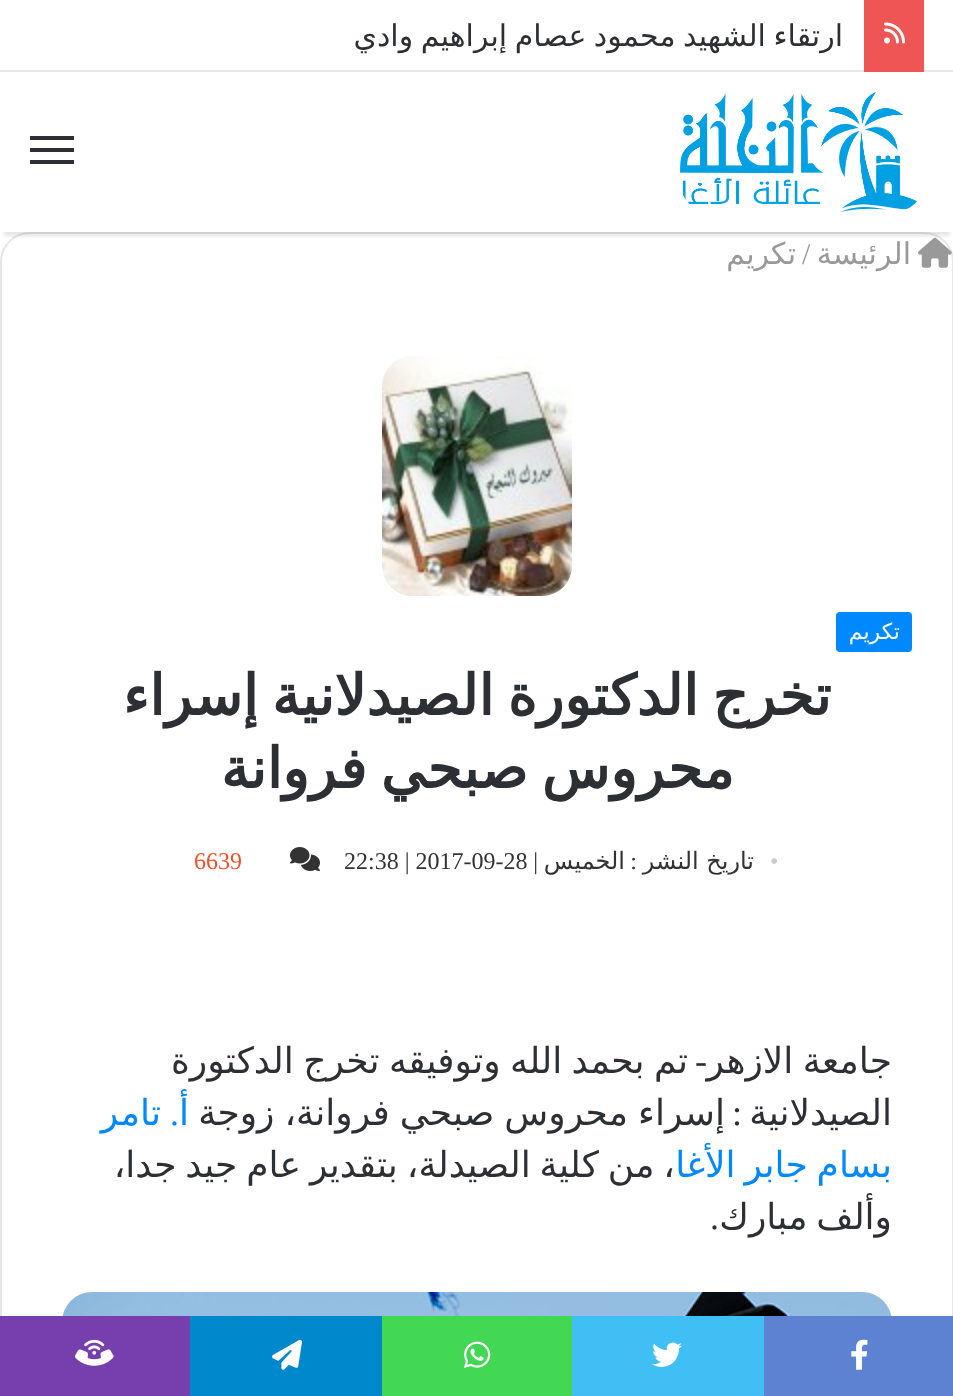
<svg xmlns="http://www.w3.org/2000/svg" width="953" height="1396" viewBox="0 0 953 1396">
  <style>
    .t1 { font: 30px DejaVu Sans; direction: rtl; fill: #2c2f34; }
    .t2 { font: 30px DejaVu Sans; direction: rtl; fill: #999; }
    .t3 { font: 30px Liberation Serif; fill: #999; }
    .t4 { font: 22px DejaVu Sans; direction: rtl; fill: #fff; }
    .t5 { font: bold 56px DejaVu Sans; direction: rtl; fill: #2c2f34; }
    .t6 { font: 24px Liberation Serif; fill: #ccc; }
    .t7 { font: 24px DejaVu Sans; direction: rtl; fill: #333; }
    .t8 { font: 24px Liberation Serif; direction: rtl; fill: #333; }
    .t9 { font: 24px Liberation Serif; fill: #333; }
    .t10 { font: 24px Liberation Serif; fill: #f3502a; }
    .t11 { font: 36px DejaVu Sans; direction: rtl; fill: #2c2f34; }
    .t12 { font: 36px Liberation Serif; direction: rtl; fill: #2c2f34; }
    .t13 { font: 36px DejaVu Sans; direction: rtl; fill: #08f; }
    .t14 { font: 36px Liberation Serif; direction: rtl; fill: #08f; }
  </style>
  <defs>
    <clipPath id="clip1"><rect x="354" y="0" width="490" height="70"/></clipPath>
    <clipPath id="clip2"><rect x="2" y="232" width="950" height="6"/></clipPath>
  </defs>
  <rect width="100%" height="100%" fill="#fff"/>
  <rect x="0" y="70" width="953" height="2" fill="#e6e6e6"/>
  <rect x="864" y="0" width="60" height="72" fill="#f05555"/>
  <image x="884" y="22" width="21" height="22" href="images/1.png"/>
  <g clip-path="url(#clip1)">
    <text x="843" y="46" word-spacing="-2" class="t1">ارتقاء الشهيد محمود عصام إبراهيم وادي</text>
  </g>
  <rect x="1" y="233" width="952" height="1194" rx="29" fill="none" stroke="#e6e6e6" stroke-width="2"/>
  <image x="918" y="237" width="34" height="31" href="images/3.png"/>
  <g clip-path="url(#clip2)">
    <rect x="4" y="84" width="946" height="152" fill="#0000001a" filter="blur(2px)"/>
  </g>
  <image x="680" y="92" width="237" height="120" href="images/2.png"/>
  <rect x="30" y="148" width="44" height="4" fill="#2c2f34"/>
  <rect x="30" y="136" width="44" height="4" fill="#2c2f34"/>
  <rect x="30" y="160" width="44" height="4" fill="#2c2f34"/>
  <text x="911" y="264" class="t2">الرئيسة</text>
  <text x="802" y="264" class="t3">/</text>
  <text x="796" y="264" class="t2">تكريم</text>
  <image x="382" y="356" width="190" height="240" href="images/4.png"/>
  <rect x="836" y="612" width="76" height="40" rx="4" fill="#08f"/>
  <text x="900" y="639" class="t4">تكريم</text>
  <text x="831" y="715" word-spacing="-4" class="t5">تخرج الدكتورة الصيدلانية إسراء</text>
  <text x="734" y="788" word-spacing="-4" class="t5">محروس صبحي فروانة</text>
  <text x="770" y="869" class="t6">•</text>
  <text x="754" y="869" class="t7">تاريخ النشر</text>
  <text x="637" y="869" class="t8">:</text>
  <text x="625" y="869" class="t7">الخميس</text>
  <text x="538" y="869" class="t8">|</text>
  <text x="344" y="869" class="t9">22:38 | 2017-09-28</text>
  <image x="290" y="847" width="30" height="24" href="images/5.png"/>
  <text x="194" y="869" class="t10">6639</text>
  <text x="688" y="1073" word-spacing="-2" class="t11">تم بحمد الله وتوفيقه تخرج الدكتورة</text>
  <text x="707" y="1073" class="t12">-</text>
  <text x="892" y="1073" word-spacing="-2" class="t11">جامعة الازهر</text>
  <text x="892" y="1125" class="t11">الصيدلانية</text>
  <text x="742" y="1125" class="t12">:</text>
  <text x="725" y="1125" word-spacing="-1.5" class="t11">إسراء محروس صبحي فروانة، زوجة</text>
  <text x="189" y="1125" class="t13">أ</text>
  <text x="179" y="1125" class="t14">.</text>
  <text x="161" y="1125" class="t13">تامر</text>
  <text x="892" y="1177" word-spacing="-2.5" class="t13">بسام جابر الأغا</text>
  <text x="675" y="1177" word-spacing="-2.5" class="t11">، من كلية الصيدلة، بتقدير عام جيد جدا،</text>
  <text x="892" y="1229" word-spacing="-2.5" class="t11">وألف مبارك</text>
  <text x="719" y="1229" class="t12">.</text>
  <image x="62" y="1292" width="830" height="24" href="images/6.png"/>
  <rect x="764" y="1316" width="189" height="80" fill="#5d82d1"/>
  <image x="851" y="1339" width="17" height="31" href="images/7.png"/>
  <rect x="572" y="1316" width="192" height="80" fill="#40bff5"/>
  <image x="652" y="1342" width="30" height="25" href="images/8.png"/>
  <rect x="382" y="1316" width="190" height="80" fill="#43d854"/>
  <image x="464" y="1341" width="27" height="27" href="images/9.png"/>
  <rect x="190" y="1316" width="192" height="80" fill="#08c"/>
  <image x="272" y="1339" width="30" height="31" href="images/10.png"/>
  <rect x="0" y="1316" width="190" height="80" fill="#773ead"/>
  <image x="75" y="1339" width="39" height="27" href="images/11.png"/>
</svg>
